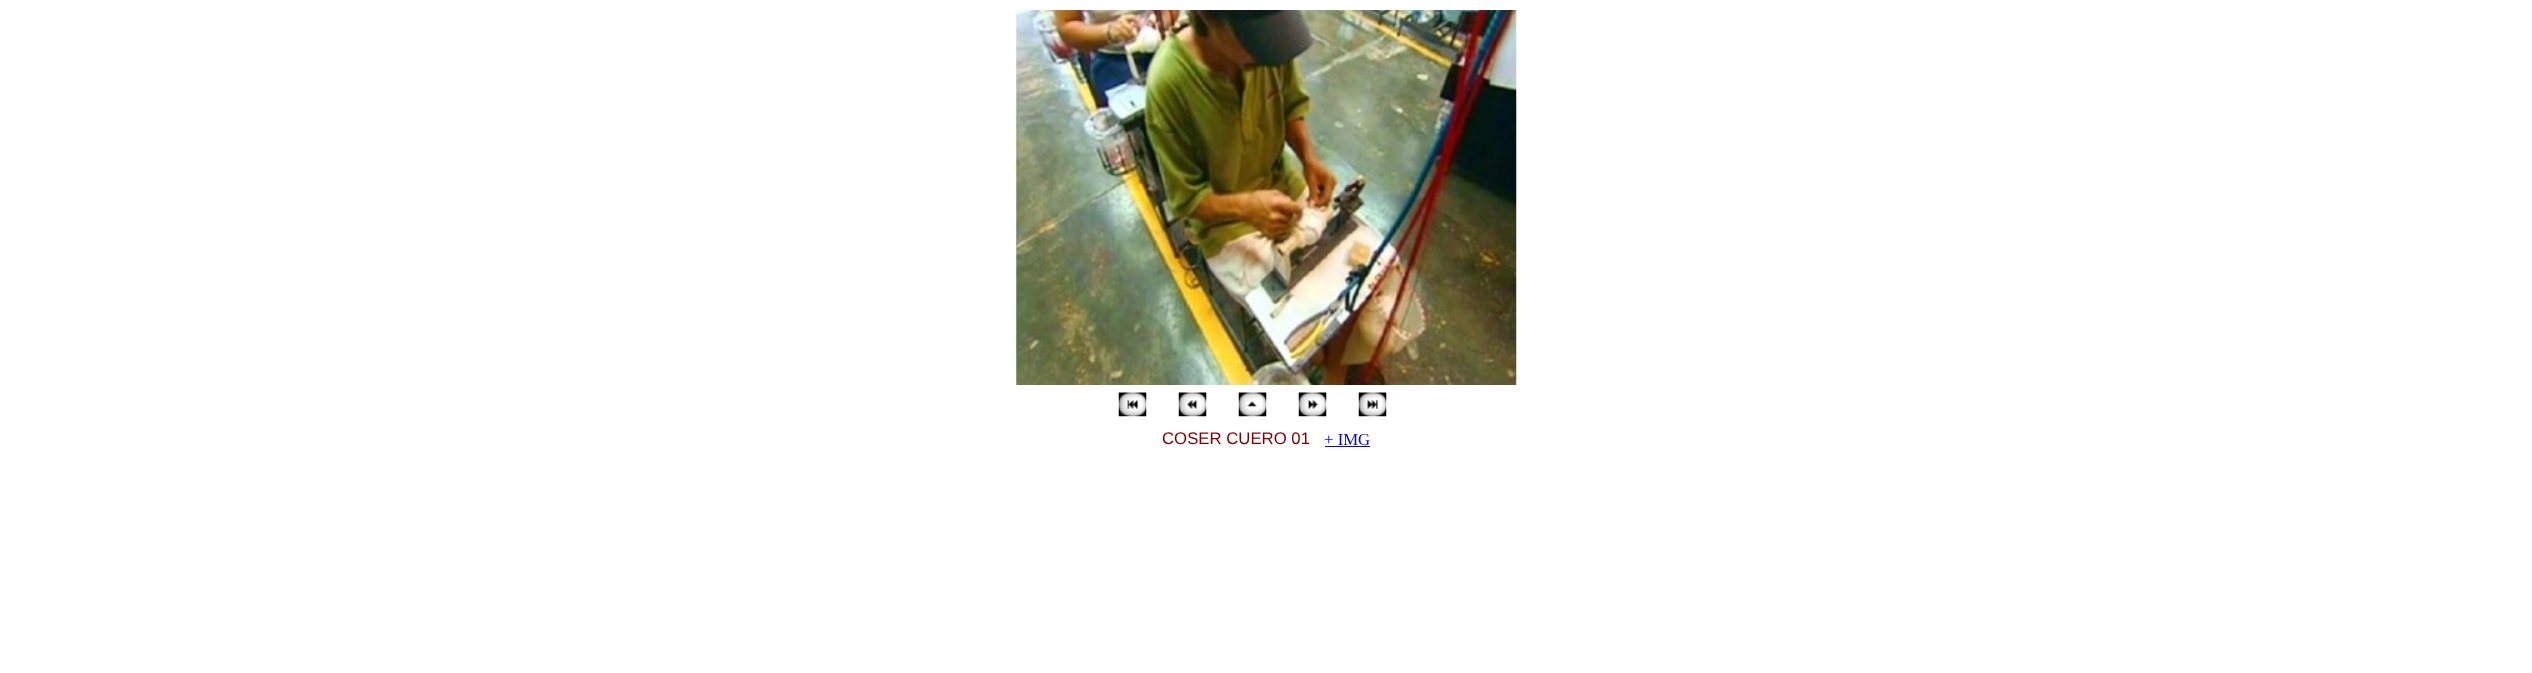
<svg xmlns="http://www.w3.org/2000/svg" width="2532" height="673" viewBox="0 0 2532 673">
  <style>
    .t1 { font: 16.75px Liberation Sans; fill: #800000; }
    .t2 { font: 16.75px Liberation Serif; fill: #00e; }
  </style>
  <rect width="100%" height="100%" fill="#fff"/>
  <image x="1016" y="10" width="501" height="375" href="images/1.png"/>
  <image x="1118" y="392" width="29" height="25" href="images/2.png"/>
  <image x="1178" y="392" width="29" height="25" href="images/3.png"/>
  <image x="1238" y="392" width="29" height="25" href="images/4.png"/>
  <image x="1298" y="392" width="29" height="25" href="images/5.png"/>
  <image x="1358" y="392" width="29" height="25" href="images/6.png"/>
  <text x="1162" y="444" class="t1">COSER CUERO 01</text>
  <text x="1324" y="445" class="t2">+ IMG</text>
  <rect x="1325" y="446" width="45" height="1" fill="#00e"/>
</svg>
